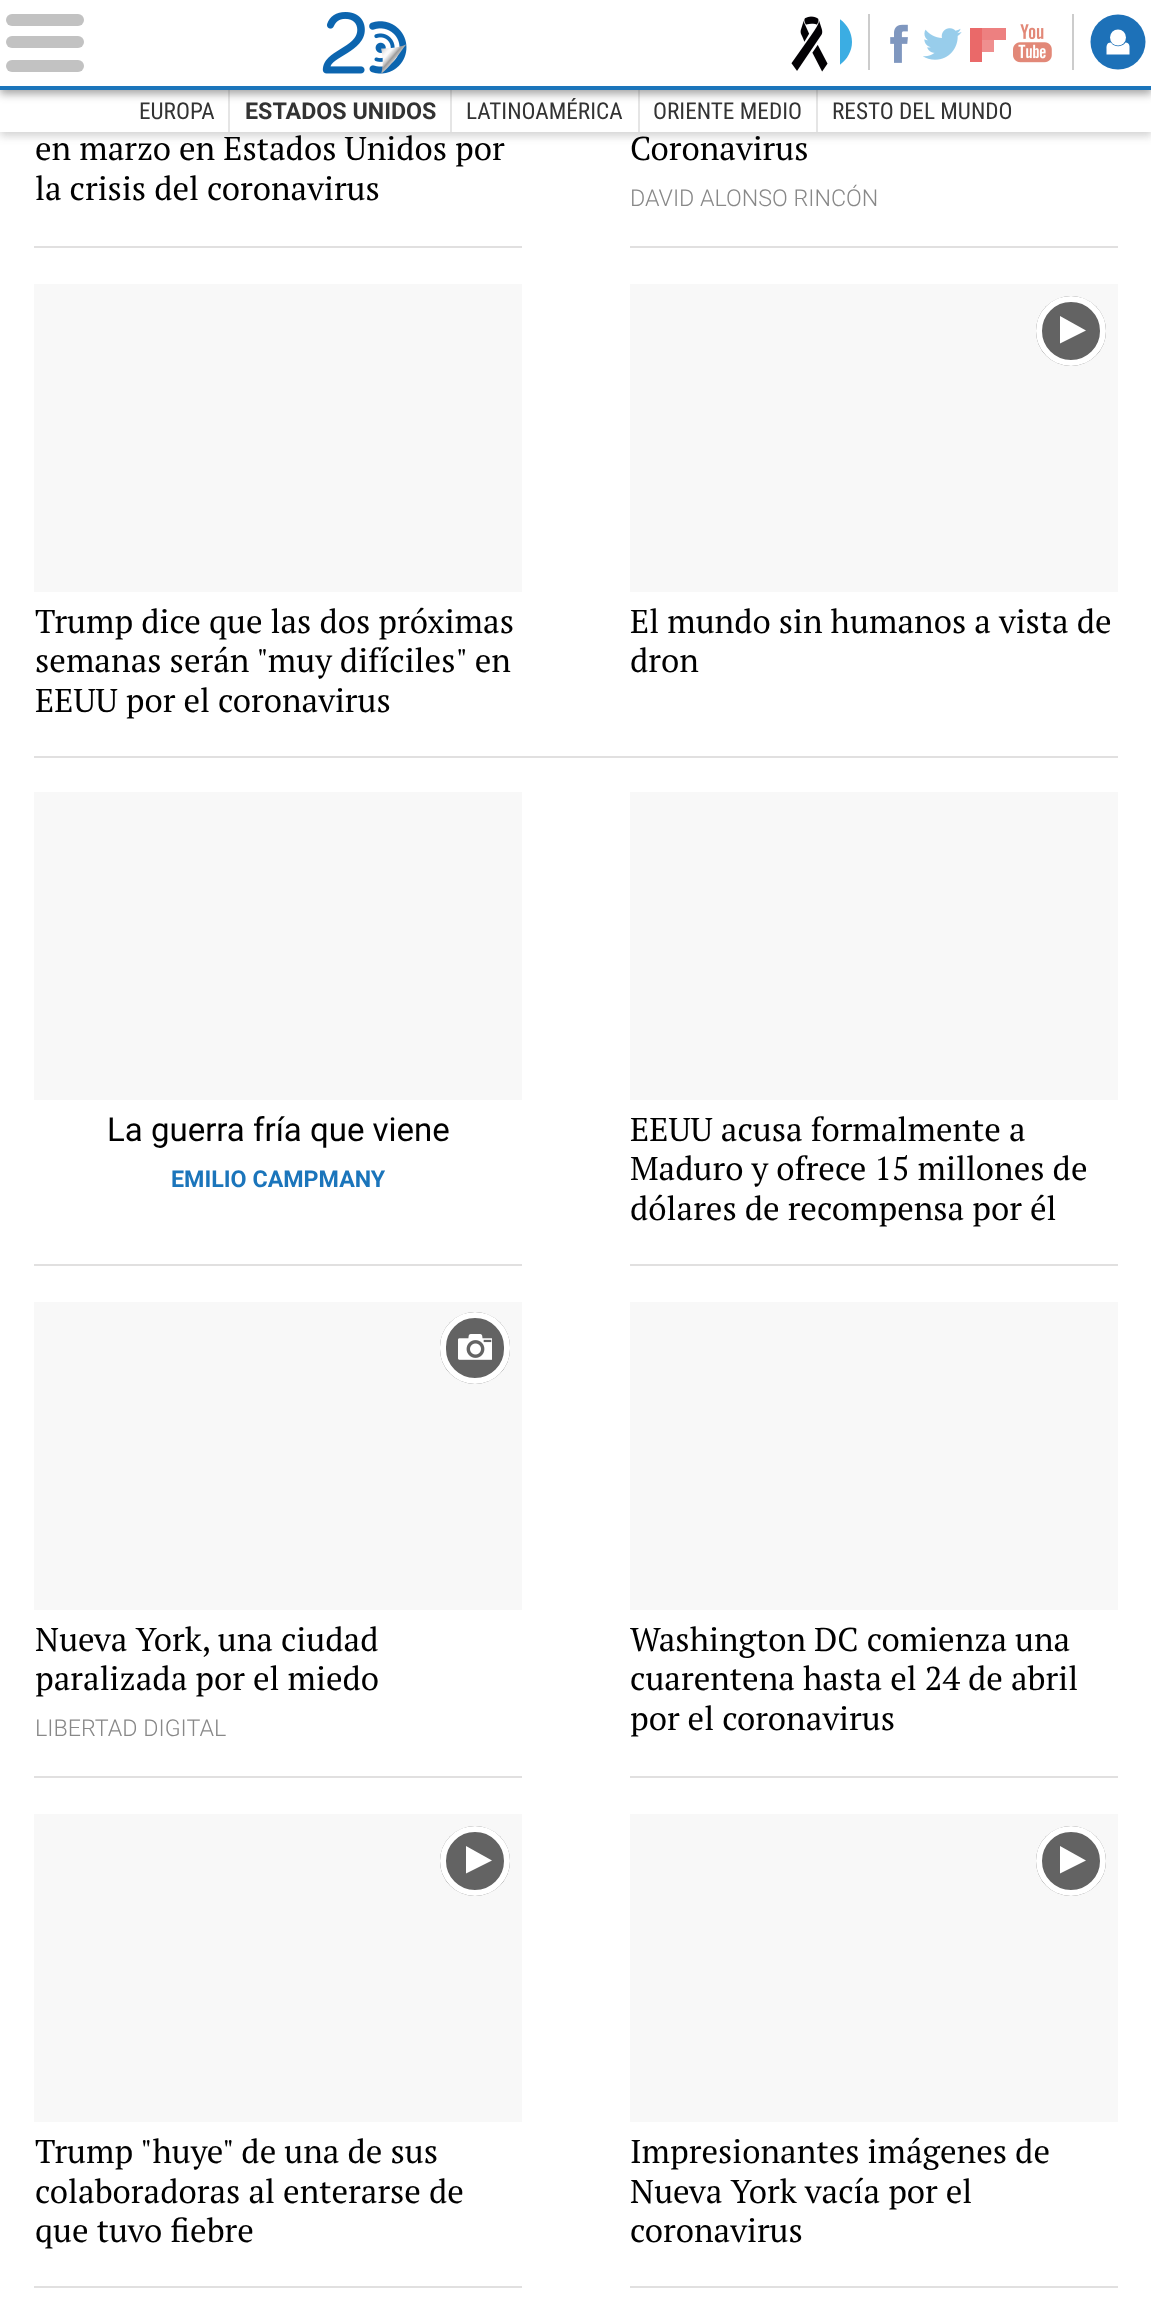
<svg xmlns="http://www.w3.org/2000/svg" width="1151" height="2298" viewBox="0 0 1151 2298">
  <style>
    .t1 { font: 23.25px Roboto Condensed; fill: #333; }
    .t2 { font: bold 23.25px Roboto; fill: #333; }
    .t3 { font: 33px PT Serif; fill: #000; }
    .t4 { font: 300 23.25px Roboto; fill: #888; }
    .t5 { font: 33px Roboto; fill: #000; }
    .t6 { font: bold 23.25px Roboto; fill: #1b75bb; }
  </style>
  <defs>
    <clipPath id="clip1"><rect x="840" y="14" width="12" height="56"/></clipPath>
  </defs>
  <rect width="100%" height="100%" fill="#fff"/>
  <rect x="0" y="92" width="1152" height="44" fill="#32323238" filter="blur(4px)"/>
  <rect x="0" y="90" width="1151" height="42" fill="#fff"/>
  <rect x="228" y="88" width="2" height="44" fill="#e5e5e5"/>
  <rect x="450" y="88" width="2" height="44" fill="#e5e5e5"/>
  <rect x="638" y="88" width="2" height="44" fill="#e5e5e5"/>
  <rect x="816" y="88" width="2" height="44" fill="#e5e5e5"/>
  <rect x="0" y="4" width="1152" height="90" fill="#32323270" filter="blur(4px)"/>
  <rect x="0" y="0" width="1151" height="86" fill="#fff"/>
  <rect x="0" y="86" width="1151" height="4" fill="#1b75bb"/>
  <rect x="6" y="14" width="78" height="12" rx="6" fill="#c2c2c2"/>
  <rect x="6" y="36" width="78" height="12" rx="6" fill="#c2c2c2"/>
  <rect x="6" y="60" width="78" height="12" rx="6" fill="#c2c2c2"/>
  <image x="322" y="12" width="506" height="62" href="images/1.png"/>
  <rect x="868" y="14" width="2" height="56" fill="#ccc"/>
  <g clip-path="url(#clip1)">
    <path d="M824 14C809 14 796 27 796 42C796 57 809 70 824 70C839 70 852 57 852 42C852 27 839 14 824 14ZM818 55V29L835 42Z" fill="#3bade3"/>
  </g>
  <rect x="1072" y="14" width="2" height="56" fill="#ccc"/>
  <image x="890" y="24" width="18" height="39" href="images/2.png"/>
  <image x="923" y="28" width="39" height="32" href="images/3.png"/>
  <rect x="970" y="28" width="12" height="34" fill="#ea6969"/>
  <path d="M994 28H982V40H1006V28Z" fill="#ed8080"/>
  <rect x="982" y="40" width="12" height="12" fill="#ef8f8f"/>
  <image x="1013" y="24" width="39" height="39" href="images/4.png"/>
  <circle cx="1118" cy="42" r="27.5" fill="#1d71b8"/>
  <circle cx="1118" cy="37.5" r="8" fill="#fff"/>
  <path d="M1110 45.5H1110ZM1126 45.5H1126ZM1129.5 46.5V54.5H1106.5V49C1106.5 46 1106.5 42.5 1111 42.5C1114 47.5 1122 47.5 1125.5 42.5C1127.5 42.5 1129.5 44 1129.5 46.5Z" fill="#fff"/>
  <text x="139" y="119" class="t1">EUROPA</text>
  <text x="245" y="119" class="t2">ESTADOS UNIDOS</text>
  <text x="466" y="119" class="t1">LATINOAMÉRICA</text>
  <text x="653" y="119" class="t1">ORIENTE MEDIO</text>
  <text x="832" y="119" class="t1">RESTO DEL MUNDO</text>
  <rect x="34" y="756" width="1084" height="2" fill="#e1e0e0"/>
  <rect x="34" y="246" width="488" height="2" fill="#e1e0e0"/>
  <text x="35" y="160" class="t3">en marzo en Estados Unidos por</text>
  <text x="35" y="200" class="t3">la crisis del coronavirus</text>
  <rect x="630" y="246" width="488" height="2" fill="#e1e0e0"/>
  <text x="630" y="160" class="t3">Coronavirus</text>
  <text x="630" y="206" class="t4">DAVID ALONSO RINCÓN</text>
  <rect x="34" y="284" width="488" height="308" fill="#f8f8f8"/>
  <text x="35" y="633" class="t3">Trump dice que las dos próximas</text>
  <text x="35" y="672" class="t3">semanas serán "muy difíciles" en</text>
  <text x="35" y="712" class="t3">EEUU por el coronavirus</text>
  <rect x="630" y="284" width="488" height="308" fill="#f8f8f8"/>
  <circle cx="1071" cy="331" r="35" fill="#636363"/>
  <path d="M1060 343.5V316L1086 330.5Z" fill="#fff"/>
  <circle cx="1071" cy="331" r="32" fill="none" stroke="#fff" stroke-width="6"/>
  <text x="630" y="633" class="t3">El mundo sin humanos a vista de</text>
  <text x="630" y="672" class="t3">dron</text>
  <rect x="34" y="1264" width="488" height="2" fill="#e1e0e0"/>
  <rect x="34" y="792" width="488" height="308" fill="#f8f8f8"/>
  <text x="107" y="1141" class="t5">La guerra fría que viene</text>
  <text x="171" y="1187" class="t6">EMILIO CAMPMANY</text>
  <rect x="630" y="1264" width="488" height="2" fill="#e1e0e0"/>
  <rect x="630" y="792" width="488" height="308" fill="#f8f8f8"/>
  <text x="630" y="1141" class="t3">EEUU acusa formalmente a</text>
  <text x="630" y="1180" class="t3">Maduro y ofrece 15 millones de</text>
  <text x="630" y="1220" class="t3">dólares de recompensa por él</text>
  <rect x="34" y="1776" width="488" height="2" fill="#e1e0e0"/>
  <rect x="34" y="1302" width="488" height="308" fill="#f8f8f8"/>
  <rect x="440" y="1312" width="70" height="72" rx="35" fill="#636363"/>
  <image x="458" y="1334" width="34" height="26" href="images/5.png"/>
  <rect x="443" y="1315" width="64" height="66" rx="32" fill="none" stroke="#fff" stroke-width="6"/>
  <text x="35" y="1651" class="t3">Nueva York, una ciudad</text>
  <text x="35" y="1690" class="t3">paralizada por el miedo</text>
  <text x="35" y="1736" class="t4">LIBERTAD DIGITAL</text>
  <rect x="630" y="1776" width="488" height="2" fill="#e1e0e0"/>
  <rect x="630" y="1302" width="488" height="308" fill="#f8f8f8"/>
  <text x="630" y="1651" class="t3">Washington DC comienza una</text>
  <text x="630" y="1690" class="t3">cuarentena hasta el 24 de abril</text>
  <text x="630" y="1730" class="t3">por el coronavirus</text>
  <rect x="34" y="2286" width="488" height="2" fill="#e1e0e0"/>
  <rect x="34" y="1814" width="488" height="308" fill="#f8f8f8"/>
  <circle cx="475" cy="1861" r="35" fill="#636363"/>
  <path d="M466 1873.5V1846L492 1860.5Z" fill="#fff"/>
  <circle cx="475" cy="1861" r="32" fill="none" stroke="#fff" stroke-width="6"/>
  <text x="35" y="2163" class="t3">Trump "huye" de una de sus</text>
  <text x="35" y="2203" class="t3">colaboradoras al enterarse de</text>
  <text x="35" y="2242" class="t3">que tuvo fiebre</text>
  <rect x="630" y="2286" width="488" height="2" fill="#e1e0e0"/>
  <rect x="630" y="1814" width="488" height="308" fill="#f8f8f8"/>
  <circle cx="1071" cy="1861" r="35" fill="#636363"/>
  <path d="M1060 1873.5V1846L1086 1860.5Z" fill="#fff"/>
  <circle cx="1071" cy="1861" r="32" fill="none" stroke="#fff" stroke-width="6"/>
  <text x="630" y="2163" class="t3">Impresionantes imágenes de</text>
  <text x="630" y="2203" class="t3">Nueva York vacía por el</text>
  <text x="630" y="2242" class="t3">coronavirus</text>
</svg>
